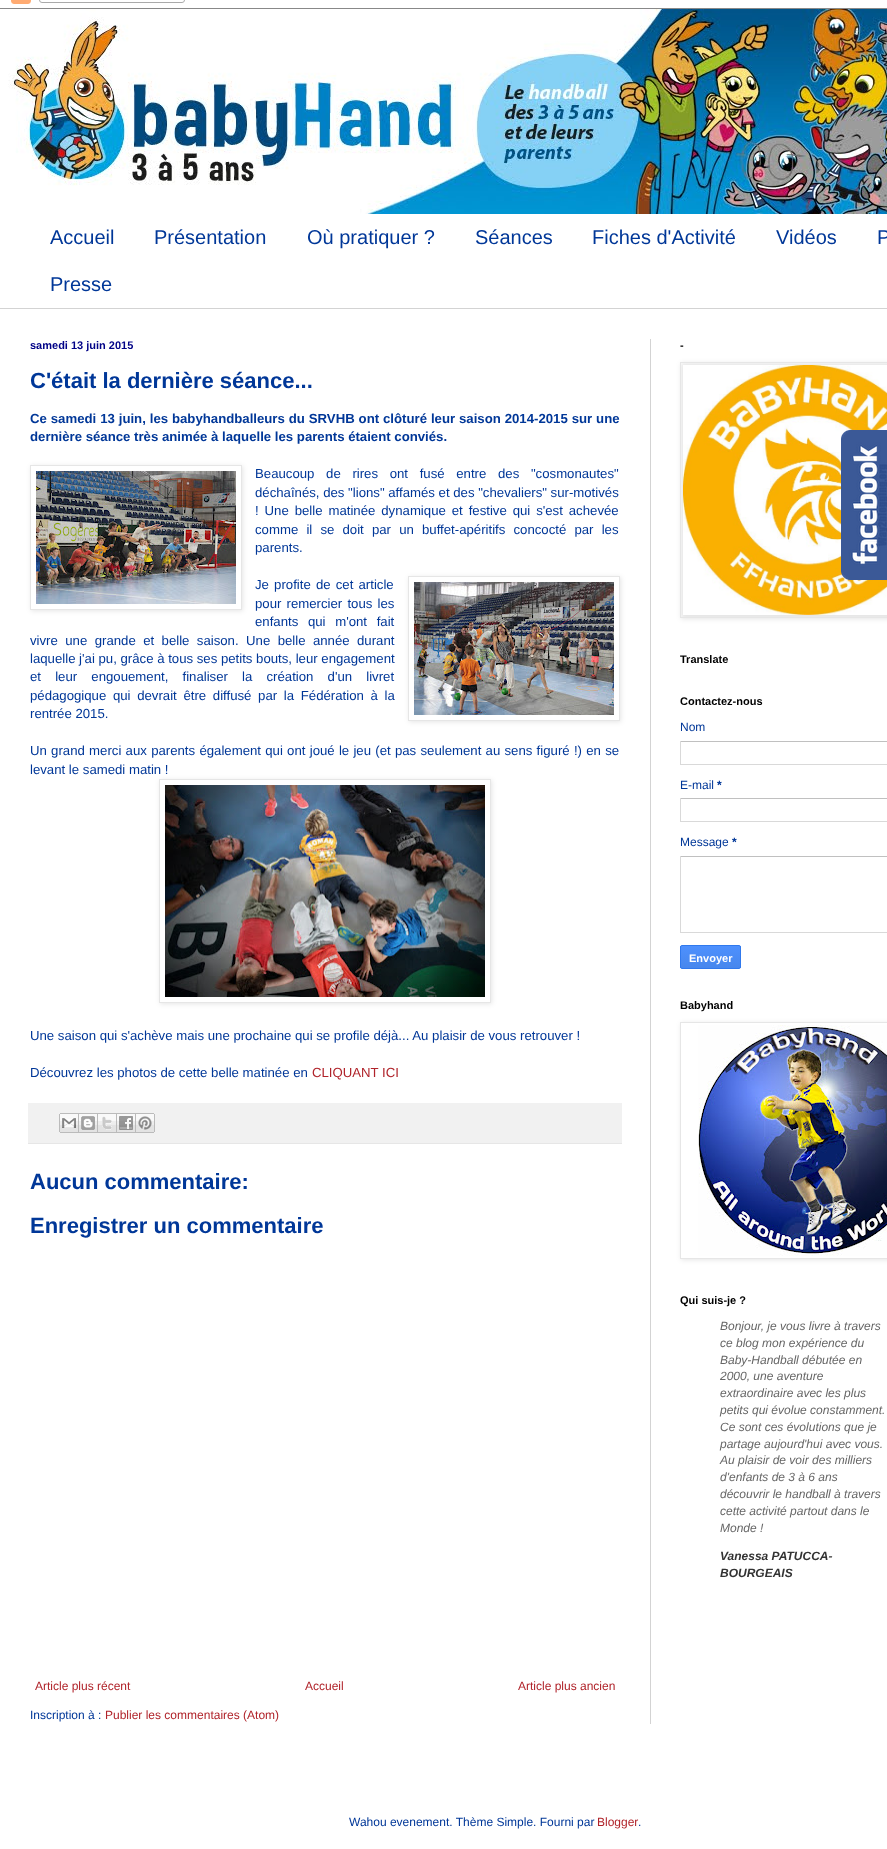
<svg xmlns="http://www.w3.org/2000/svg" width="887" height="1849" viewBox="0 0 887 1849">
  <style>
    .t1 { font: 20px Liberation Sans; fill: #003798; }
    .t2 { font: bold 11px Liberation Sans; fill: #000287; }
    .t3 { font: bold 22px Liberation Sans; fill: #003798; }
    .t4 { font: bold 13.2px Liberation Sans; fill: #003798; }
    .t5 { font: 13.2px Liberation Sans; fill: #003798; }
    .t6 { font: 13.2px Liberation Sans; fill: #b0232a; }
    .t7 { font: 12px Liberation Sans; fill: #b0232a; }
    .t8 { font: 12px Liberation Sans; fill: #003798; }
    .t9 { font: bold 11px Liberation Sans; fill: #000; }
    .t10 { font: bold 12px Liberation Sans; fill: #003798; }
    .t11 { font: bold 11px Liberation Sans; fill: #fff; }
    .t12 { font: italic 12px Liberation Sans; fill: #666; }
    .t13 { font: italic bold 12px Liberation Sans; fill: #333; }
  </style>
  <defs>
    <clipPath id="clip1"><path d="M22 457H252V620H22ZM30 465H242V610H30Z" clip-rule="evenodd"/></clipPath>
    <clipPath id="clip2"><path d="M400 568H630V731H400ZM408 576H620V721H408Z" clip-rule="evenodd"/></clipPath>
    <clipPath id="clip3"><path d="M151 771H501V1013H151ZM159 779H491V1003H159Z" clip-rule="evenodd"/></clipPath>
    <clipPath id="clip4"><rect x="680" y="945" width="61" height="24" rx="2"/></clipPath>
    <linearGradient id="g1" gradientUnits="userSpaceOnUse" x1="711" y1="946" x2="711" y2="968"><stop offset="0" stop-color="#4d90fe"/><stop offset="1" stop-color="#4787ed"/></linearGradient>
    <clipPath id="clip5"><path d="M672 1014H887V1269H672ZM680 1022H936V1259H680Z" clip-rule="evenodd"/></clipPath>
  </defs>
  <rect width="100%" height="100%" fill="#fff"/>
  <image x="0" y="0" width="887" height="9" href="images/1.png"/>
  <image x="8" y="9" width="879" height="205" href="images/2.png"/>
  <text x="50" y="244" class="t1">Accueil</text>
  <text x="154" y="244" class="t1">Présentation</text>
  <text x="307" y="244" class="t1">Où pratiquer ?</text>
  <text x="475" y="244" class="t1">Séances</text>
  <text x="592" y="244" class="t1">Fiches d'Activité</text>
  <text x="776" y="244" class="t1">Vidéos</text>
  <text x="877" y="244" class="t1">P</text>
  <text x="50" y="291" class="t1">Presse</text>
  <rect x="0" y="308" width="887" height="1" fill="#d3d3d3"/>
  <rect x="650" y="339" width="1" height="1385" fill="#d3d3d3"/>
  <text x="30" y="349" class="t2">samedi 13 juin 2015</text>
  <text x="30" y="388" class="t3">C'était la dernière séance...</text>
  <text x="30" y="423" word-spacing="0.25" class="t4">Ce samedi 13 juin, les babyhandballeurs du SRVHB ont clôturé leur saison 2014-2015 sur une</text>
  <text x="30" y="441" class="t4">dernière séance très animée à laquelle les parents étaient conviés.</text>
  <g clip-path="url(#clip1)">
    <rect x="31" y="466" width="212" height="145" fill="#0000001a" filter="blur(2.5px)"/>
  </g>
  <rect x="30.5" y="465.5" width="211" height="144" fill="none" stroke="#e6e6e6"/>
  <image x="36" y="471" width="200" height="133" href="images/3.png"/>
  <text x="255" y="478" word-spacing="8" class="t5">Beaucoup de rires ont fusé entre des "cosmonautes"</text>
  <text x="255" y="497" class="t5">déchaînés, des "lions" affamés et des "chevaliers" sur-motivés</text>
  <text x="255" y="515" word-spacing="2.25" class="t5">! Une belle matinée dynamique et festive qui s'est achevée</text>
  <text x="255" y="534" word-spacing="4.5" class="t5">comme il se doit par un buffet-apéritifs concocté par les</text>
  <text x="255" y="552" class="t5">parents.</text>
  <text x="255" y="589" word-spacing="1.5" class="t5">Je profite de cet article</text>
  <g clip-path="url(#clip2)">
    <rect x="409" y="577" width="212" height="145" fill="#0000001a" filter="blur(2.5px)"/>
  </g>
  <rect x="408.5" y="576.5" width="211" height="144" fill="none" stroke="#e6e6e6"/>
  <image x="414" y="582" width="200" height="133" href="images/4.png"/>
  <text x="255" y="608" word-spacing="1.5" class="t5">pour remercier tous les</text>
  <text x="255" y="626" word-spacing="6" class="t5">enfants qui m'ont fait</text>
  <text x="30" y="645" word-spacing="3.75" class="t5">vivre une grande et belle saison. Une belle année durant</text>
  <text x="30" y="663" class="t5">laquelle j'ai pu, grâce à tous ses petits bouts, leur engagement</text>
  <text x="30" y="681" word-spacing="10.5" class="t5">et leur engouement, finaliser la création d'un livret</text>
  <text x="30" y="700" word-spacing="3" class="t5">pédagogique qui devrait être diffusé par la Fédération à la</text>
  <text x="30" y="718" class="t5">rentrée 2015.</text>
  <text x="30" y="755" word-spacing="0.6" class="t5">Un grand merci aux parents également qui ont joué le jeu (et pas seulement au sens figuré !) en se</text>
  <text x="30" y="774" class="t5">levant le samedi matin !</text>
  <g clip-path="url(#clip3)">
    <rect x="160" y="780" width="332" height="224" fill="#0000001a" filter="blur(2.5px)"/>
  </g>
  <rect x="159.5" y="779.5" width="331" height="223" fill="none" stroke="#e6e6e6"/>
  <image x="165" y="785" width="320" height="212" href="images/5.png"/>
  <text x="30" y="1040" class="t5">Une saison qui s'achève mais une prochaine qui se profile déjà... Au plaisir de vous retrouver !</text>
  <text x="30" y="1077" class="t5">Découvrez les photos de cette belle matinée en</text>
  <text x="312" y="1077" class="t6">CLIQUANT ICI</text>
  <rect x="28" y="1103" width="594" height="40" fill="#f1f1f1"/>
  <rect x="28" y="1143" width="594" height="1" fill="#e6e6e6"/>
  <image x="59" y="1113" width="20" height="20" href="images/6.png"/>
  <image x="79" y="1113" width="19" height="20" href="images/7.png"/>
  <image x="98" y="1113" width="19" height="20" href="images/8.png"/>
  <image x="117" y="1113" width="19" height="20" href="images/9.png"/>
  <image x="136" y="1113" width="19" height="20" href="images/10.png"/>
  <text x="30" y="1189" class="t3">Aucun commentaire:</text>
  <text x="30" y="1233" class="t3">Enregistrer un commentaire</text>
  <text x="35" y="1690" class="t7">Article plus récent</text>
  <text x="305" y="1690" class="t7">Accueil</text>
  <text x="518" y="1690" class="t7">Article plus ancien</text>
  <text x="30" y="1719" class="t8">Inscription à :</text>
  <text x="105" y="1719" class="t7">Publier les commentaires (Atom)</text>
  <text x="680" y="349" class="t9">-</text>
  <rect x="681" y="363" width="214" height="256" fill="#0000001a" filter="blur(2.5px)"/>
  <rect x="680.5" y="362.5" width="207" height="255" fill="none" stroke="#e6e6e6"/>
  <image x="683" y="365" width="204" height="250" href="images/11.png"/>
  <image x="841" y="430" width="46" height="150" href="images/12.png"/>
  <text x="680" y="663" class="t9">Translate</text>
  <text x="680" y="705" class="t9">Contactez-nous</text>
  <text x="680" y="731" class="t8">Nom</text>
  <rect x="680" y="741" width="207" height="1" fill="#c0c0c0"/>
  <rect x="680" y="764" width="207" height="1" fill="#d9d9d9"/>
  <rect x="680" y="741" width="1" height="24" fill="#d9d9d9"/>
  <text x="680" y="789" class="t8">E-mail</text>
  <text x="717" y="789" class="t10">*</text>
  <rect x="680" y="798" width="207" height="1" fill="#c0c0c0"/>
  <rect x="680" y="821" width="207" height="1" fill="#d9d9d9"/>
  <rect x="680" y="798" width="1" height="24" fill="#d9d9d9"/>
  <text x="680" y="846" class="t8">Message</text>
  <text x="732" y="846" class="t10">*</text>
  <rect x="680" y="856" width="207" height="1" fill="#c0c0c0"/>
  <rect x="680" y="932" width="207" height="1" fill="#d9d9d9"/>
  <rect x="680" y="856" width="1" height="77" fill="#d9d9d9"/>
  <g clip-path="url(#clip4)">
    <rect x="680" y="946" width="61" height="22" fill="url(#g1)"/>
  </g>
  <rect x="680.5" y="945.5" width="60" height="23" rx="1.5" fill="none" stroke="#3079ed"/>
  <text x="689" y="962" class="t11">Envoyer</text>
  <text x="680" y="1009" class="t9">Babyhand</text>
  <g clip-path="url(#clip5)">
    <rect x="681" y="1023" width="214" height="237" fill="#0000001a" filter="blur(2.5px)"/>
  </g>
  <rect x="680.5" y="1022.5" width="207" height="236" fill="none" stroke="#e6e6e6"/>
  <image x="698" y="1025" width="189" height="231" href="images/13.png"/>
  <text x="680" y="1304" class="t9">Qui suis-je ?</text>
  <text x="720" y="1330" class="t12">Bonjour, je vous livre à travers</text>
  <text x="720" y="1347" class="t12">ce blog mon expérience du</text>
  <text x="720" y="1364" class="t12">Baby-Handball débutée en</text>
  <text x="720" y="1380" class="t12">2000, une aventure</text>
  <text x="720" y="1397" class="t12">extraordinaire avec les plus</text>
  <text x="720" y="1414" class="t12">petits qui évolue constamment.</text>
  <text x="720" y="1431" class="t12">Ce sont ces évolutions que je</text>
  <text x="720" y="1448" class="t12">partage aujourd'hui avec vous.</text>
  <text x="720" y="1464" class="t12">Au plaisir de voir des milliers</text>
  <text x="720" y="1481" class="t12">d'enfants de 3 à 6 ans</text>
  <text x="720" y="1498" class="t12">découvrir le handball à travers</text>
  <text x="720" y="1515" class="t12">cette activité partout dans le</text>
  <text x="720" y="1532" class="t12">Monde !</text>
  <text x="720" y="1560" class="t13">Vanessa PATUCCA-</text>
  <text x="720" y="1577" class="t13">BOURGEAIS</text>
  <text x="349" y="1826" class="t8">Wahou evenement. Thème Simple. Fourni par</text>
  <text x="597" y="1826" class="t7">Blogger</text>
  <text x="638" y="1826" class="t8">.</text>
</svg>
